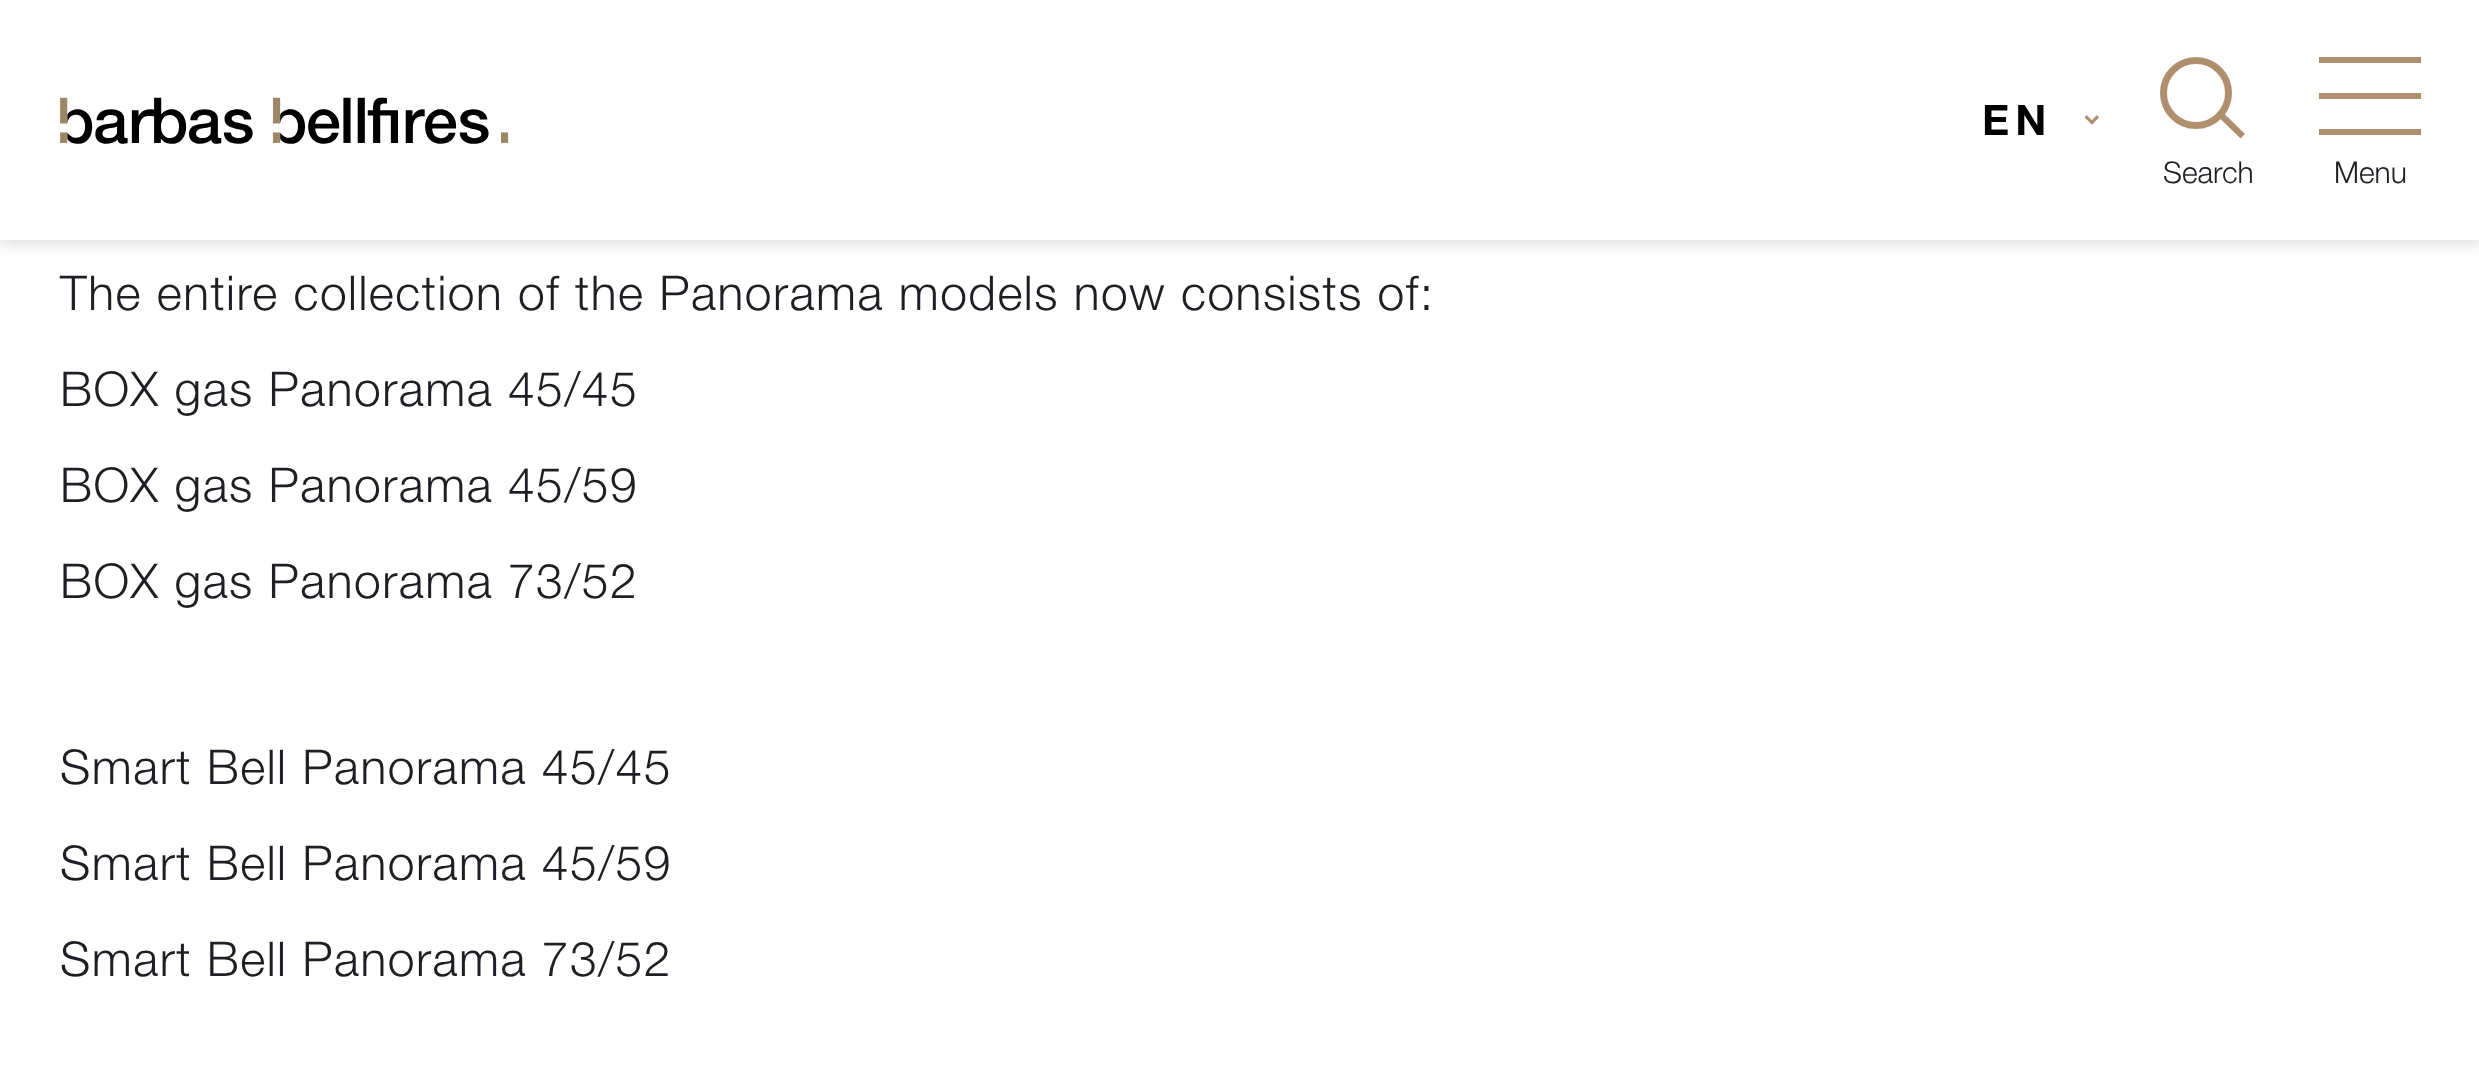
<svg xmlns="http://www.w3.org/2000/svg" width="2479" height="1073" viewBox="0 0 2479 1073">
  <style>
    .t1 { font: bold 42px Helvetica Neue; letter-spacing: 6px; fill: #000; }
    .t2 { font: 300 30px Helvetica Neue; fill: #1d1f24; }
    .t3 { font: 300 48px Helvetica Neue; letter-spacing: 1.5px; fill: #1d1f24; }
  </style>
  <rect width="100%" height="100%" fill="#fff"/>
  <rect x="0" y="3" width="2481" height="240" fill="#00000026" filter="blur(7.5px)"/>
  <rect x="0" y="0" width="2479" height="240" fill="#fff"/>
  <image x="60" y="97" width="449" height="47" href="images/1.png"/>
  <text x="1982" y="135" class="t1">EN</text>
  <path d="M2099 117.5L2092 124.5L2089.5 122.5L2097 115Z" fill="#af8f6e"/>
  <path d="M2094 122.5L2092 124.5L2084.5 117.5L2086.5 115Z" fill="#af8f6e"/>
  <circle cx="2196" cy="93" r="32.5" fill="none" stroke="#af8f6e" stroke-width="7"/>
  <path d="M2223.5 113L2245 134L2240.5 138.5L2219 117.5Z" fill="#af8f6e"/>
  <text x="2163" y="183" class="t2">Search</text>
  <rect x="2319" y="93" width="102" height="6" fill="#af8f6e"/>
  <rect x="2319" y="57" width="102" height="6" fill="#af8f6e"/>
  <rect x="2319" y="129" width="102" height="6" fill="#af8f6e"/>
  <text x="2334" y="183" class="t2">Menu</text>
  <text x="60" y="310" class="t3">The entire collection of the Panorama models now consists of:</text>
  <text x="60" y="406" class="t3">BOX gas Panorama 45/45</text>
  <text x="60" y="502" class="t3">BOX gas Panorama 45/59</text>
  <text x="60" y="598" class="t3">BOX gas Panorama 73/52</text>
  <text x="60" y="784" class="t3">Smart Bell Panorama 45/45</text>
  <text x="60" y="880" class="t3">Smart Bell Panorama 45/59</text>
  <text x="60" y="976" class="t3">Smart Bell Panorama 73/52</text>
</svg>
